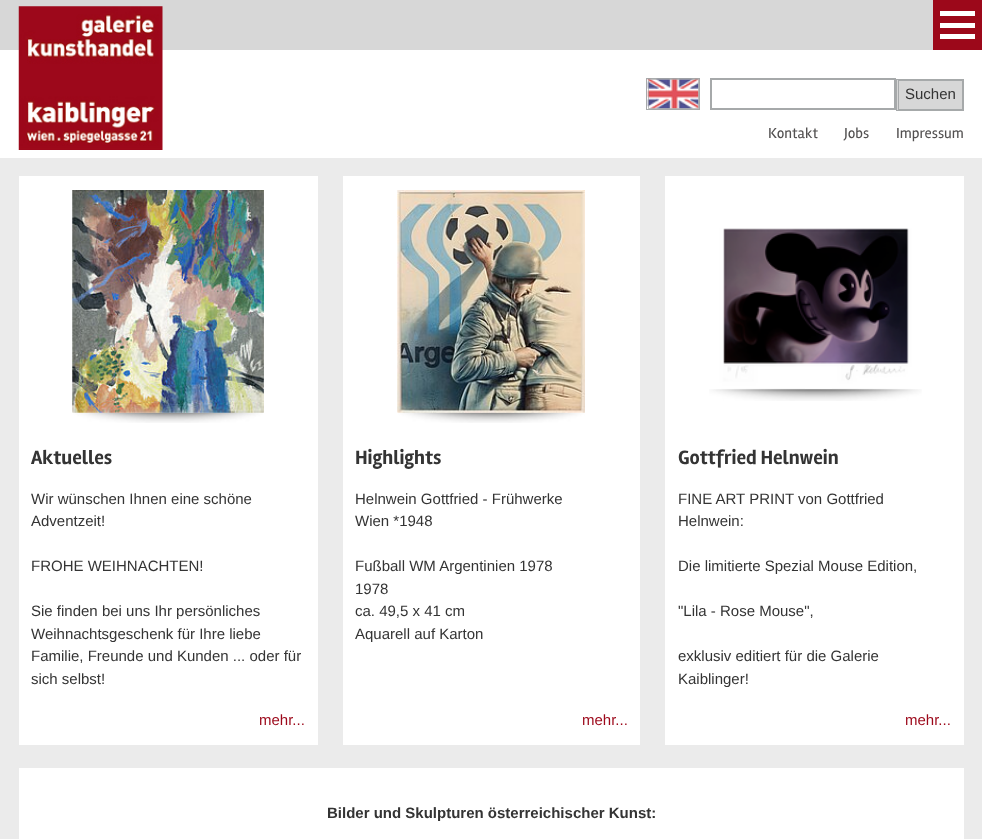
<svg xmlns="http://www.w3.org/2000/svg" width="982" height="839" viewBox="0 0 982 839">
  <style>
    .t1 { font: 15px Liberation Sans; fill: #343434; }
    .t2 { font: 15px Rambla; fill: #535151; }
    .t3 { font: bold 20px Rambla; fill: #343434; }
    .t4 { font: 15px Liberation Sans; fill: #9c081a; }
    .t5 { font: bold 15px Liberation Sans; fill: #343434; }
  </style>
  <rect width="100%" height="100%" fill="#ebebeb"/>
  <rect x="0" y="0" width="933" height="50" fill="#d7d7d7"/>
  <rect x="933" y="0" width="49" height="50" fill="#9c081a"/>
  <rect x="940" y="23" width="35" height="5" fill="#fff"/>
  <rect x="940" y="11" width="35" height="5" fill="#fff"/>
  <rect x="940" y="34" width="35" height="5" fill="#fff"/>
  <rect x="0" y="50" width="982" height="108" fill="#fff"/>
  <image x="18" y="6" width="145" height="144" href="images/1.png"/>
  <rect x="646.5" y="78.5" width="53" height="31" fill="none" stroke="#a6a9aa"/>
  <image x="647" y="78" width="52" height="31" href="images/2.png"/>
  <rect x="648.5" y="79.5" width="50" height="29" fill="none" stroke="#a6a9aab3"/>
  <rect x="711.5" y="79.5" width="183" height="29" fill="none" stroke="#a6a9aa"/>
  <rect x="710.5" y="78.5" width="185" height="31" fill="none" stroke="#a6a9aa"/>
  <rect x="897" y="80" width="65" height="30" fill="#d7d7d7"/>
  <rect x="898.5" y="80.5" width="64" height="29" fill="none" stroke="#a6a9aa"/>
  <rect x="896.5" y="79.5" width="67" height="31" fill="none" stroke="#a6a9aa"/>
  <text x="905" y="99" class="t1">Suchen</text>
  <text x="768" y="138" class="t2">Kontakt</text>
  <text x="844" y="138" class="t2">Jobs</text>
  <text x="896" y="138" class="t2">Impressum</text>
  <rect x="19" y="176" width="299" height="569" fill="#fff"/>
  <image x="72" y="190" width="192" height="233" href="images/3.png"/>
  <image x="72" y="190" width="192" height="223" href="images/4.png"/>
  <text x="31" y="464" class="t3">Aktuelles</text>
  <text x="31" y="504" class="t1">Wir wünschen Ihnen eine schöne</text>
  <text x="31" y="526" class="t1">Adventzeit!</text>
  <text x="31" y="571" class="t1">FROHE WEIHNACHTEN!</text>
  <text x="31" y="616" class="t1">Sie finden bei uns Ihr persönliches</text>
  <text x="31" y="639" class="t1">Weihnachtsgeschenk für Ihre liebe</text>
  <text x="31" y="661" class="t1">Familie, Freunde und Kunden ... oder für</text>
  <text x="31" y="684" class="t1">sich selbst!</text>
  <text x="259" y="725" class="t4">mehr...</text>
  <rect x="343" y="176" width="297" height="569" fill="#fff"/>
  <image x="397" y="190" width="188" height="233" href="images/5.png"/>
  <image x="397" y="190" width="188" height="223" href="images/6.png"/>
  <text x="355" y="464" class="t3">Highlights</text>
  <text x="355" y="504" class="t1">Helnwein Gottfried - Frühwerke</text>
  <text x="355" y="526" class="t1">Wien *1948</text>
  <text x="355" y="571" class="t1">Fußball WM Argentinien 1978</text>
  <text x="355" y="594" class="t1">1978</text>
  <text x="355" y="616" class="t1">ca. 49,5 x 41 cm</text>
  <text x="355" y="639" class="t1">Aquarell auf Karton</text>
  <text x="582" y="725" class="t4">mehr...</text>
  <rect x="665" y="176" width="299" height="569" fill="#fff"/>
  <image x="709" y="228" width="213" height="173" href="images/7.png"/>
  <rect x="805" y="388" width="27" height="1" fill="#fdfdfd"/>
  <text x="678" y="464" class="t3">Gottfried Helnwein</text>
  <text x="678" y="504" class="t1">FINE ART PRINT von Gottfried</text>
  <text x="678" y="526" class="t1">Helnwein:</text>
  <text x="678" y="571" class="t1">Die limitierte Spezial Mouse Edition,</text>
  <text x="678" y="616" class="t1">"Lila - Rose Mouse",</text>
  <text x="678" y="661" class="t1">exklusiv editiert für die Galerie</text>
  <text x="678" y="684" class="t1">Kaiblinger!</text>
  <text x="905" y="725" class="t4">mehr...</text>
  <rect x="19" y="768" width="945" height="71" fill="#fff"/>
  <text x="327" y="818" class="t5">Bilder und Skulpturen österreichischer Kunst:</text>
</svg>
